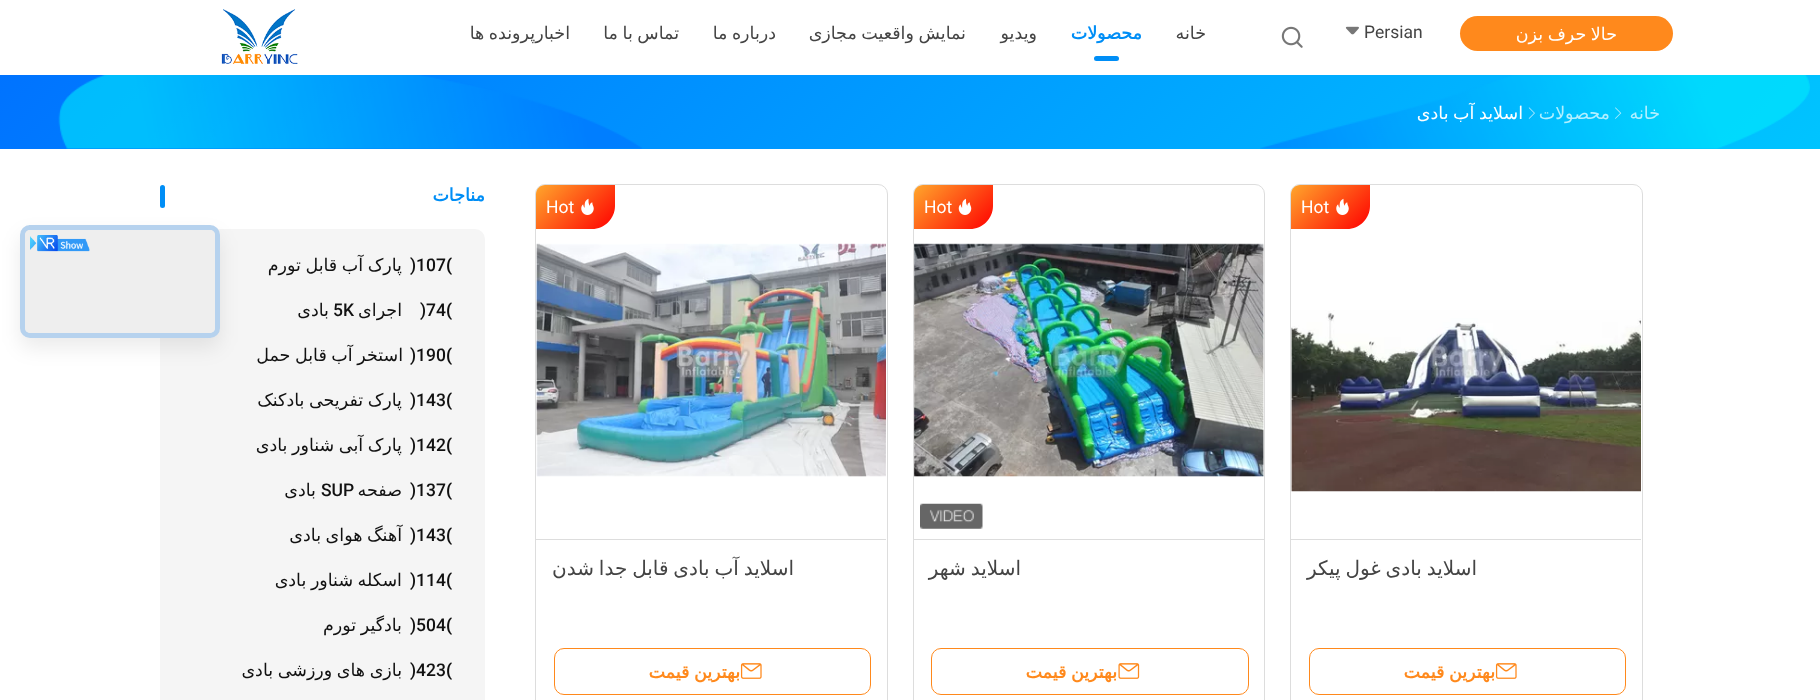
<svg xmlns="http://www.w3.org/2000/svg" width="1820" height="700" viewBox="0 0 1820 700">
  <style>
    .t1 { font: 17.5px DejaVu Sans; direction: rtl; fill: #fff; }
    .t2 { font: 17.5px Roboto; fill: #444; }
    .t3 { font: 17.5px DejaVu Sans; direction: rtl; fill: #444; }
    .t4 { font: bold 17.5px DejaVu Sans; direction: rtl; fill: #008ef6; }
    .t5 { font: 17.5px DejaVu Sans; direction: rtl; fill: #b3f0ff; }
    .t6 { font: 17.5px Roboto; fill: #fff; }
    .t7 { font: 20px DejaVu Sans; direction: rtl; fill: #444; }
    .t8 { font: bold 17.5px DejaVu Sans; direction: rtl; fill: #ff891c; }
    .t9 { font: bold 17.5px Roboto; fill: #111; }
    .t10 { font: 500 17.5px Roboto; fill: #111; }
    .t11 { font: 17.5px DejaVu Sans; direction: rtl; fill: #111; }
  </style>
  <defs>
    <linearGradient id="g1" gradientUnits="userSpaceOnUse" x1="437" y1="-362" x2="1383" y2="585"><stop offset="0" stop-color="#0073ff"/><stop offset="1" stop-color="#00c4ff"/></linearGradient>
    <linearGradient id="g2" gradientUnits="userSpaceOnUse" x1="1300" y1="176" x2="1361" y2="238"><stop offset="0" stop-color="#ffa72c"/><stop offset="1" stop-color="#f00"/></linearGradient>
    <linearGradient id="g3" gradientUnits="userSpaceOnUse" x1="923" y1="176" x2="984" y2="238"><stop offset="0" stop-color="#ffa72c"/><stop offset="1" stop-color="#f00"/></linearGradient>
    <linearGradient id="g4" gradientUnits="userSpaceOnUse" x1="545" y1="176" x2="606" y2="238"><stop offset="0" stop-color="#ffa72c"/><stop offset="1" stop-color="#f00"/></linearGradient>
  </defs>
  <rect width="100%" height="100%" fill="#fff"/>
  <rect x="1460" y="16" width="213" height="35" rx="17.5" fill="#ff891c"/>
  <text x="1617" y="40" word-spacing="-1" class="t1">حالا حرف بزن</text>
  <text x="1364" y="38" class="t2">Persian</text>
  <image x="1345" y="26" width="14" height="9" href="images/1.png"/>
  <image x="1281" y="26" width="22" height="22" href="images/2.png"/>
  <text x="1206" y="39" class="t3">خانه</text>
  <text x="1142" y="39" class="t4">محصولات</text>
  <rect x="1094" y="56" width="25" height="5" rx="2.5" fill="#008ef6"/>
  <text x="1037" y="39" class="t3">ویدیو</text>
  <text x="966" y="39" word-spacing="-1" class="t3">نمایش واقعیت مجازی</text>
  <text x="776" y="39" word-spacing="-1" class="t3">درباره ما</text>
  <text x="679" y="39" word-spacing="-1" class="t3">تماس با ما</text>
  <text x="570" y="39" class="t3">اخبار</text>
  <text x="535" y="39" word-spacing="-1" class="t3">پرونده ها</text>
  <image x="221" y="9" width="77" height="55" href="images/3.png"/>
  <rect x="0" y="75" width="1820" height="74" fill="url(#g1)"/>
  <image x="1260" y="75" width="550" height="74" href="images/4.png"/>
  <image x="58" y="75" width="584" height="74" href="images/5.png"/>
  <text x="1660" y="119" class="t5">خانه</text>
  <image x="1615" y="107" width="7" height="12" href="images/6.png"/>
  <text x="1610" y="119" class="t5">محصولات</text>
  <image x="1528" y="107" width="7" height="12" href="images/7.png"/>
  <text x="1523" y="119" word-spacing="-1" class="t1">اسلاید آب بادی</text>
  <rect x="1290.5" y="184.5" width="352" height="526" rx="9.5" fill="none" stroke="#ddd"/>
  <path d="M1300 185H1370V206C1370 218.5 1359.5 229 1347 229H1291V194C1291 189 1295 185 1300 185Z" fill="url(#g2)"/>
  <image x="1336" y="198" width="13" height="17" href="images/8.png"/>
  <text x="1301" y="213" class="t6">Hot</text>
  <image x="1291" y="310" width="350" height="182" href="images/9.png"/>
  <rect x="1291" y="539" width="350" height="1" fill="#ddd"/>
  <text x="1477" y="575" word-spacing="-1.5" class="t7">اسلاید بادی غول پیکر</text>
  <rect x="1309.5" y="648.5" width="316" height="46" rx="9.5" fill="none" stroke="#ff891c"/>
  <image x="1495" y="663" width="22" height="16" href="images/10.png"/>
  <text x="1495" y="678" word-spacing="-1" class="t8">بهترین قیمت</text>
  <rect x="913.5" y="184.5" width="351" height="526" rx="9.5" fill="none" stroke="#ddd"/>
  <path d="M923 185H993V206C993 218.5 982.5 229 970 229H914V194C914 189 918 185 923 185Z" fill="url(#g3)"/>
  <image x="958" y="198" width="14" height="17" href="images/11.png"/>
  <text x="924" y="213" class="t6">Hot</text>
  <image x="914" y="243" width="350" height="234" href="images/12.png"/>
  <image x="920" y="503" width="63" height="26" href="images/13.png"/>
  <rect x="914" y="539" width="350" height="1" fill="#ddd"/>
  <text x="1021" y="575" word-spacing="-1.5" class="t7">اسلاید شهر</text>
  <rect x="931.5" y="648.5" width="317" height="46" rx="9.5" fill="none" stroke="#ff891c"/>
  <image x="1118" y="663" width="22" height="16" href="images/14.png"/>
  <text x="1117" y="678" word-spacing="-1" class="t8">بهترین قیمت</text>
  <rect x="535.5" y="184.5" width="352" height="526" rx="9.5" fill="none" stroke="#ddd"/>
  <path d="M545 185H615V206C615 218.5 604.5 229 592 229H536V194C536 189 540 185 545 185Z" fill="url(#g4)"/>
  <image x="581" y="198" width="13" height="17" href="images/8.png"/>
  <text x="546" y="213" class="t6">Hot</text>
  <image x="536" y="243" width="350" height="234" href="images/15.png"/>
  <rect x="536" y="539" width="350" height="1" fill="#ddd"/>
  <text x="794" y="575" word-spacing="-1.5" class="t7">اسلاید آب بادی قابل جدا شدن</text>
  <rect x="554.5" y="648.5" width="316" height="46" rx="9.5" fill="none" stroke="#ff891c"/>
  <image x="740" y="663" width="22" height="16" href="images/10.png"/>
  <text x="740" y="678" word-spacing="-1" class="t8">بهترین قیمت</text>
  <text x="485" y="201" class="t4">مناجات</text>
  <rect x="160" y="185" width="5" height="23" rx="2.5" fill="#008ef6"/>
  <rect x="160" y="229" width="325" height="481" rx="10" fill="#f5f5f5"/>
  <text x="446" y="271" class="t9">(</text>
  <text x="410" y="271" class="t10">)107</text>
  <text x="402" y="271" word-spacing="-1" class="t11">پارک آب قابل تورم</text>
  <text x="446" y="316" class="t9">(</text>
  <text x="420" y="316" class="t10">)74</text>
  <text x="402" y="316" class="t11">اجرای</text>
  <text x="333" y="316" class="t10">5K</text>
  <text x="329" y="316" class="t11">بادی</text>
  <text x="446" y="361" class="t9">(</text>
  <text x="410" y="361" class="t10">)190</text>
  <text x="403" y="361" word-spacing="-1" class="t11">استخر آب قابل حمل</text>
  <text x="446" y="406" class="t9">(</text>
  <text x="410" y="406" class="t10">)143</text>
  <text x="402" y="406" word-spacing="-1" class="t11">پارک تفریحی بادکنک</text>
  <text x="446" y="451" class="t9">(</text>
  <text x="410" y="451" class="t10">)142</text>
  <text x="402" y="451" word-spacing="-1" class="t11">پارک آبی شناور بادی</text>
  <text x="446" y="496" class="t9">(</text>
  <text x="410" y="496" class="t10">)137</text>
  <text x="402" y="496" class="t11">صفحه</text>
  <text x="321" y="496" class="t10">SUP</text>
  <text x="316" y="496" class="t11">بادی</text>
  <text x="446" y="541" class="t9">(</text>
  <text x="410" y="541" class="t10">)143</text>
  <text x="402" y="541" word-spacing="-1" class="t11">آهنگ هوای بادی</text>
  <text x="446" y="586" class="t9">(</text>
  <text x="410" y="586" class="t10">)114</text>
  <text x="402" y="586" word-spacing="-1" class="t11">اسکله شناور بادی</text>
  <text x="446" y="631" class="t9">(</text>
  <text x="410" y="631" class="t10">)504</text>
  <text x="402" y="631" word-spacing="-1" class="t11">بادگیر تورم</text>
  <text x="446" y="676" class="t9">(</text>
  <text x="410" y="676" class="t10">)423</text>
  <text x="402" y="676" word-spacing="-1" class="t11">بازی های ورزشی بادی</text>
  <rect x="20" y="235" width="200" height="113" rx="10" fill="#00000014" filter="blur(10px)"/>
  <rect x="20" y="225" width="200" height="113" rx="10" fill="#eee"/>
  <rect x="22.5" y="227.5" width="195" height="108" rx="7.5" fill="none" stroke="#0478ed3d" stroke-width="5"/>
  <rect x="25" y="230" width="190" height="103" rx="5" fill="#eee"/>
  <image x="30" y="235" width="60" height="17" href="images/16.png"/>
</svg>
